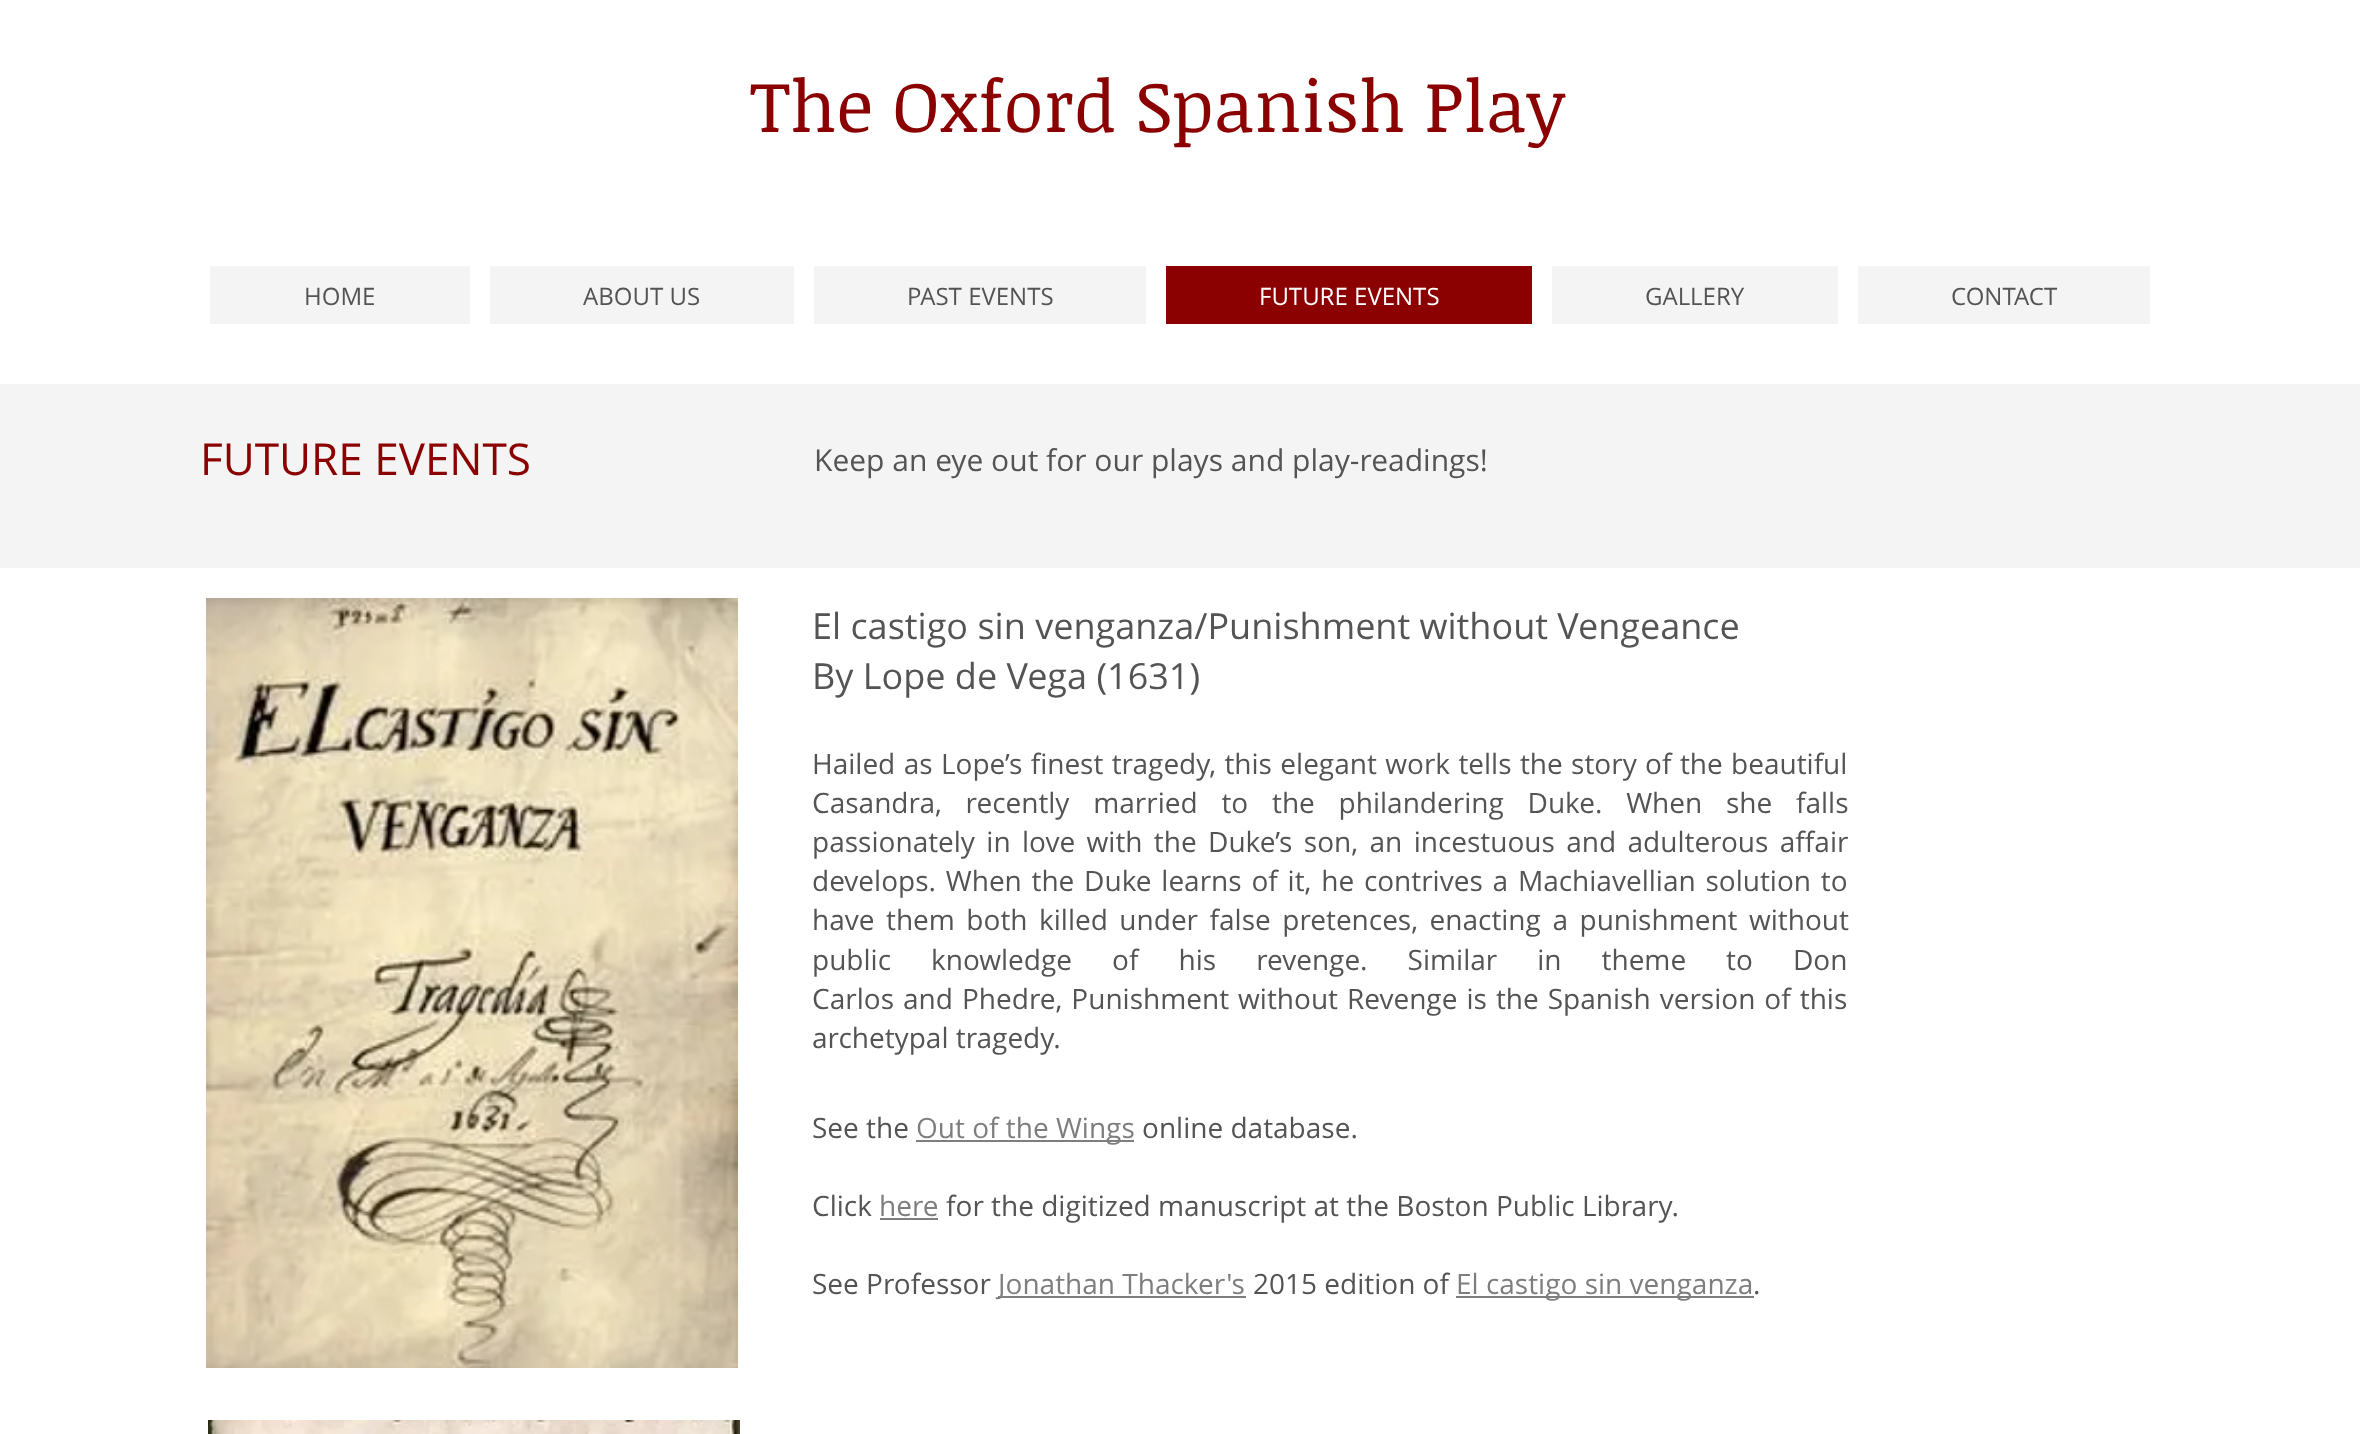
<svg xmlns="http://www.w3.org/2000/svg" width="2360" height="1434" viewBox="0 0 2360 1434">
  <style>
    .t1 { font: 72px Noticia Text; fill: #8b0000; }
    .t2 { font: 24px Open Sans; fill: #545454; }
    .t3 { font: 24px Open Sans; fill: #fff; }
    .t4 { font: 44px Open Sans; fill: #8b0000; }
    .t5 { font: 30px Open Sans; fill: #545454; }
    .t6 { font: 36px Open Sans; fill: #545454; }
    .t7 { font: 28px Open Sans; fill: #545454; }
    .t8 { font: 28px Open Sans; fill: #7e7e7e; }
  </style>
  <rect width="100%" height="100%" fill="#fff"/>
  <text x="750" y="132" class="t1">The Oxford Spanish Play</text>
  <rect x="210" y="266" width="260" height="58" fill="#f4f4f4"/>
  <text x="304" y="305" class="t2">HOME</text>
  <rect x="490" y="266" width="304" height="58" fill="#f4f4f4"/>
  <text x="583" y="305" class="t2">ABOUT US</text>
  <rect x="814" y="266" width="332" height="58" fill="#f4f4f4"/>
  <text x="907" y="305" class="t2">PAST EVENTS</text>
  <rect x="1166" y="266" width="366" height="58" fill="#8b0000"/>
  <text x="1259" y="305" class="t3">FUTURE EVENTS</text>
  <rect x="1552" y="266" width="286" height="58" fill="#f4f4f4"/>
  <text x="1645" y="305" class="t2">GALLERY</text>
  <rect x="1858" y="266" width="292" height="58" fill="#f4f4f4"/>
  <text x="1951" y="305" class="t2">CONTACT</text>
  <rect x="0" y="384" width="2360" height="184" fill="#f4f4f4"/>
  <text x="200" y="475" class="t4">FUTURE EVENTS</text>
  <text x="814" y="471" class="t5">Keep an eye out for our plays and play-readings!</text>
  <image x="206" y="598" width="532" height="770" href="images/1.png"/>
  <text x="812" y="639" class="t6">El castigo sin venganza/Punishment without Vengeance</text>
  <text x="812" y="689" class="t6">By Lope de Vega (1631)</text>
  <text x="812" y="774" word-spacing="1.1" class="t7">Hailed as Lope’s finest tragedy, this elegant work tells the story of the beautiful</text>
  <text x="812" y="813" word-spacing="16.5" class="t7">Casandra, recently married to the philandering Duke. When she falls</text>
  <text x="812" y="852" word-spacing="4.1" class="t7">passionately in love with the Duke’s son, an incestuous and adulterous affair</text>
  <text x="812" y="891" word-spacing="2.5" class="t7">develops. When the Duke learns of it, he contrives a Machiavellian solution to</text>
  <text x="812" y="930" word-spacing="4.25" class="t7">have them both killed under false pretences, enacting a punishment without</text>
  <text x="812" y="970" word-spacing="32.75" class="t7">public knowledge of his revenge. Similar in theme to Don</text>
  <text x="812" y="1009" word-spacing="1.75" class="t7">Carlos and Phedre, Punishment without Revenge is the Spanish version of this</text>
  <text x="812" y="1048" class="t7">archetypal tragedy.</text>
  <text x="812" y="1138" class="t7">See the</text>
  <rect x="916" y="1140" width="218" height="2" fill="#7e7e7e"/>
  <text x="916" y="1138" class="t8">Out of the Wings</text>
  <text x="1142" y="1138" class="t7">online database.</text>
  <text x="812" y="1216" class="t7">Click</text>
  <text x="879" y="1216" class="t8">here</text>
  <rect x="880" y="1218" width="58" height="2" fill="#7e7e7e"/>
  <text x="946" y="1216" class="t7">for the digitized manuscript at the Boston Public Library.</text>
  <text x="812" y="1294" class="t7">See Professor</text>
  <rect x="998" y="1296" width="248" height="2" fill="#7e7e7e"/>
  <text x="998" y="1294" class="t8">Jonathan Thacker's</text>
  <text x="1253" y="1294" class="t7">2015 edition of</text>
  <rect x="1456" y="1296" width="298" height="2" fill="#7e7e7e"/>
  <text x="1456" y="1294" class="t8">El castigo sin venganza</text>
  <text x="1753" y="1294" class="t7">.</text>
  <image x="208" y="1420" width="532" height="14" href="images/2.png"/>
</svg>
